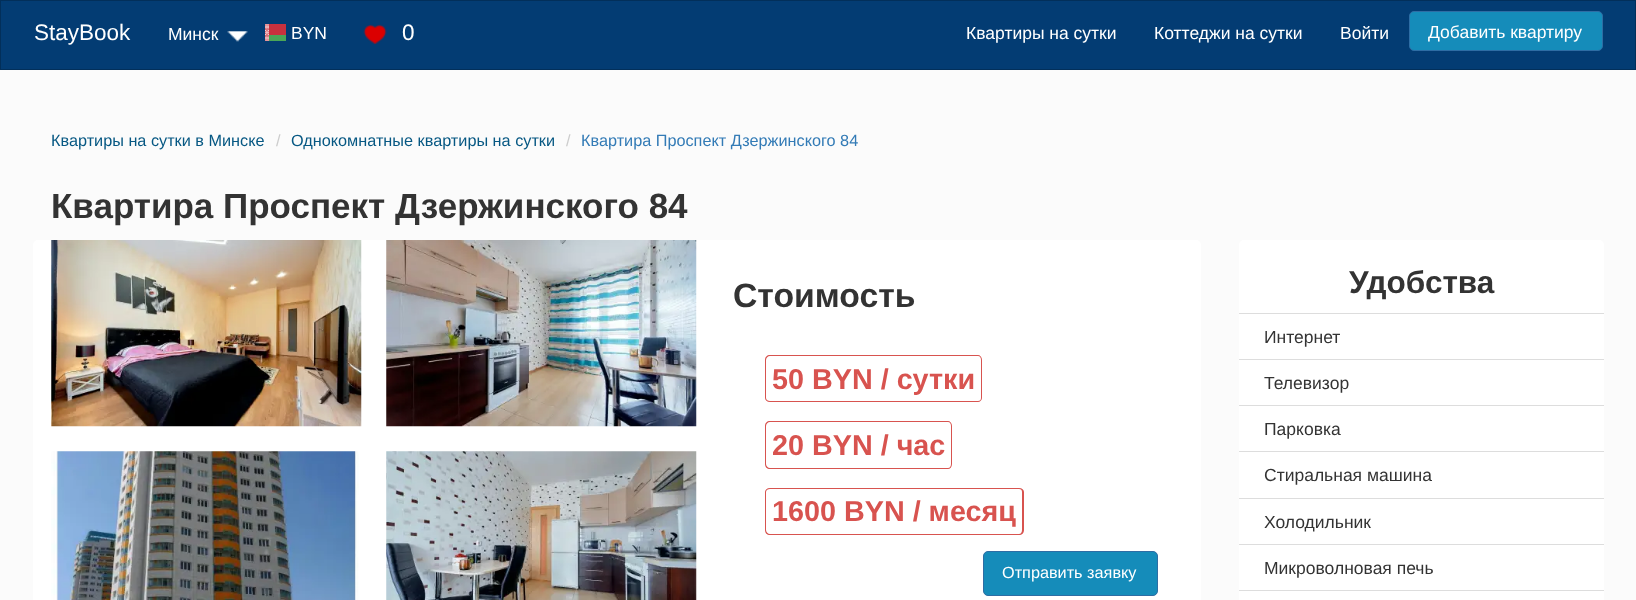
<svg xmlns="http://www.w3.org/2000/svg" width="1636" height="600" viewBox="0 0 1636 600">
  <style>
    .t1 { font: 22.5px Liberation Sans; fill: #fff; }
    .t2 { font: 17.5px Liberation Sans; fill: #fff; }
    .t3 { font: 16.25px Liberation Sans; fill: #075883; }
    .t4 { font: 16.25px Liberation Sans; fill: #ccc; }
    .t5 { font: 16.25px Liberation Sans; fill: #337bb6; }
    .t6 { font: bold 35px Liberation Sans; fill: #333; }
    .t7 { font: bold 33.75px Liberation Sans; fill: #333; }
    .t8 { font: bold 28.75px Liberation Sans; fill: #d8534f; }
    .t9 { font: 16.25px Liberation Sans; fill: #fff; }
    .t10 { font: bold 31.5px Liberation Sans; fill: #333; }
    .t11 { font: 17.5px Liberation Sans; fill: #333; }
  </style>
  <rect width="100%" height="100%" fill="#fbfbfb"/>
  <rect x="0.5" y="0.5" width="1635" height="69" fill="#033c73" stroke="#022f5a"/>
  <text x="34" y="40" class="t1">StayBook</text>
  <text x="168" y="40" class="t2">Минск</text>
  <image x="227" y="31" width="21" height="11" href="images/1.png"/>
  <image x="265" y="24" width="21" height="17" href="images/2.png"/>
  <text x="291" y="39" class="t2">BYN</text>
  <image x="363" y="24" width="24" height="21" href="images/3.png"/>
  <text x="402" y="40" class="t1">0</text>
  <text x="966" y="39" class="t2">Квартиры на сутки</text>
  <text x="1154" y="39" class="t2">Коттеджи на сутки</text>
  <text x="1340" y="39" class="t2">Войти</text>
  <rect x="1409.5" y="11.5" width="193" height="39" rx="4.5" fill="#158cba" stroke="#2e6da4"/>
  <text x="1428" y="38" class="t2">Добавить квартиру</text>
  <text x="51" y="146" class="t3">Квартиры на сутки в Минске</text>
  <text x="276" y="146" class="t4">/</text>
  <text x="291" y="146" class="t3">Однокомнатные квартиры на сутки</text>
  <text x="566" y="146" class="t4">/</text>
  <text x="581" y="146" class="t5">Квартира Проспект Дзержинского 84</text>
  <text x="51" y="218" class="t6">Квартира Проспект Дзержинского 84</text>
  <rect x="33" y="240" width="1168" height="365" rx="5" fill="#fff"/>
  <image x="51" y="240" width="311" height="187" href="images/4.png"/>
  <image x="386" y="240" width="311" height="187" href="images/5.png"/>
  <image x="51" y="451" width="308" height="149" href="images/6.png"/>
  <image x="386" y="451" width="311" height="149" href="images/7.png"/>
  <text x="733" y="307" class="t7">Стоимость</text>
  <path d="M770 355H872V402H770C767 402 765 400 765 398V360C765 357 767 355 770 355ZM770 356H872V401H770C768 401 766 400 766 398V360C766 358 768 356 770 356Z" fill="#d8534f" fill-rule="evenodd"/>
  <path d="M872 355H978C980 355 982 357 982 360V398C982 400 980 402 978 402H872ZM872 356H978C980 356 981 358 981 360V398C981 400 980 401 978 401H872Z" fill="#d8534f" fill-rule="evenodd"/>
  <text x="772" y="389" class="t8">50 BYN / сутки</text>
  <path d="M770 421H872V469H770C767 469 765 467 765 464V426C765 423 767 421 770 421ZM770 422H872V468H770C768 468 766 466 766 464V426C766 424 768 422 770 422Z" fill="#d8534f" fill-rule="evenodd"/>
  <path d="M872 421H948C950 421 952 423 952 426V464C952 467 950 469 948 469H872ZM872 422H948C950 422 951 424 951 426V464C951 466 950 468 948 468H872Z" fill="#d8534f" fill-rule="evenodd"/>
  <text x="772" y="455" class="t8">20 BYN / час</text>
  <path d="M770 488H905V535H770C767 535 765 533 765 530V492C765 490 767 488 770 488ZM770 489H905V534H770C768 534 766 532 766 530V492C766 490 768 489 770 489Z" fill="#d8534f" fill-rule="evenodd"/>
  <path d="M905 488H1019C1022 488 1024 490 1024 492V530C1024 533 1022 535 1019 535H905ZM905 489H1019C1021 489 1022 490 1022 492V530C1022 532 1021 534 1019 534H905Z" fill="#d8534f" fill-rule="evenodd"/>
  <text x="772" y="521" class="t8">1600 BYN / месяц</text>
  <rect x="983.5" y="551.5" width="174" height="44" rx="4.5" fill="#158cba" stroke="#2e6da4"/>
  <text x="1002" y="578" class="t9">Отправить заявку</text>
  <rect x="1239" y="240" width="365" height="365" rx="5" fill="#fff"/>
  <text x="1349" y="293" class="t10">Удобства</text>
  <rect x="1239" y="313" width="365" height="1" fill="#ddd"/>
  <text x="1264" y="343" class="t11">Интернет</text>
  <rect x="1239" y="359" width="365" height="1" fill="#ddd"/>
  <text x="1264" y="389" class="t11">Телевизор</text>
  <rect x="1239" y="405" width="365" height="1" fill="#ddd"/>
  <text x="1264" y="435" class="t11">Парковка</text>
  <rect x="1239" y="451" width="365" height="1" fill="#ddd"/>
  <text x="1264" y="481" class="t11">Стиральная машина</text>
  <rect x="1239" y="498" width="365" height="1" fill="#ddd"/>
  <text x="1264" y="528" class="t11">Холодильник</text>
  <rect x="1239" y="544" width="365" height="1" fill="#ddd"/>
  <text x="1264" y="574" class="t11">Микроволновая печь</text>
  <rect x="1239" y="590" width="365" height="1" fill="#ddd"/>
</svg>
